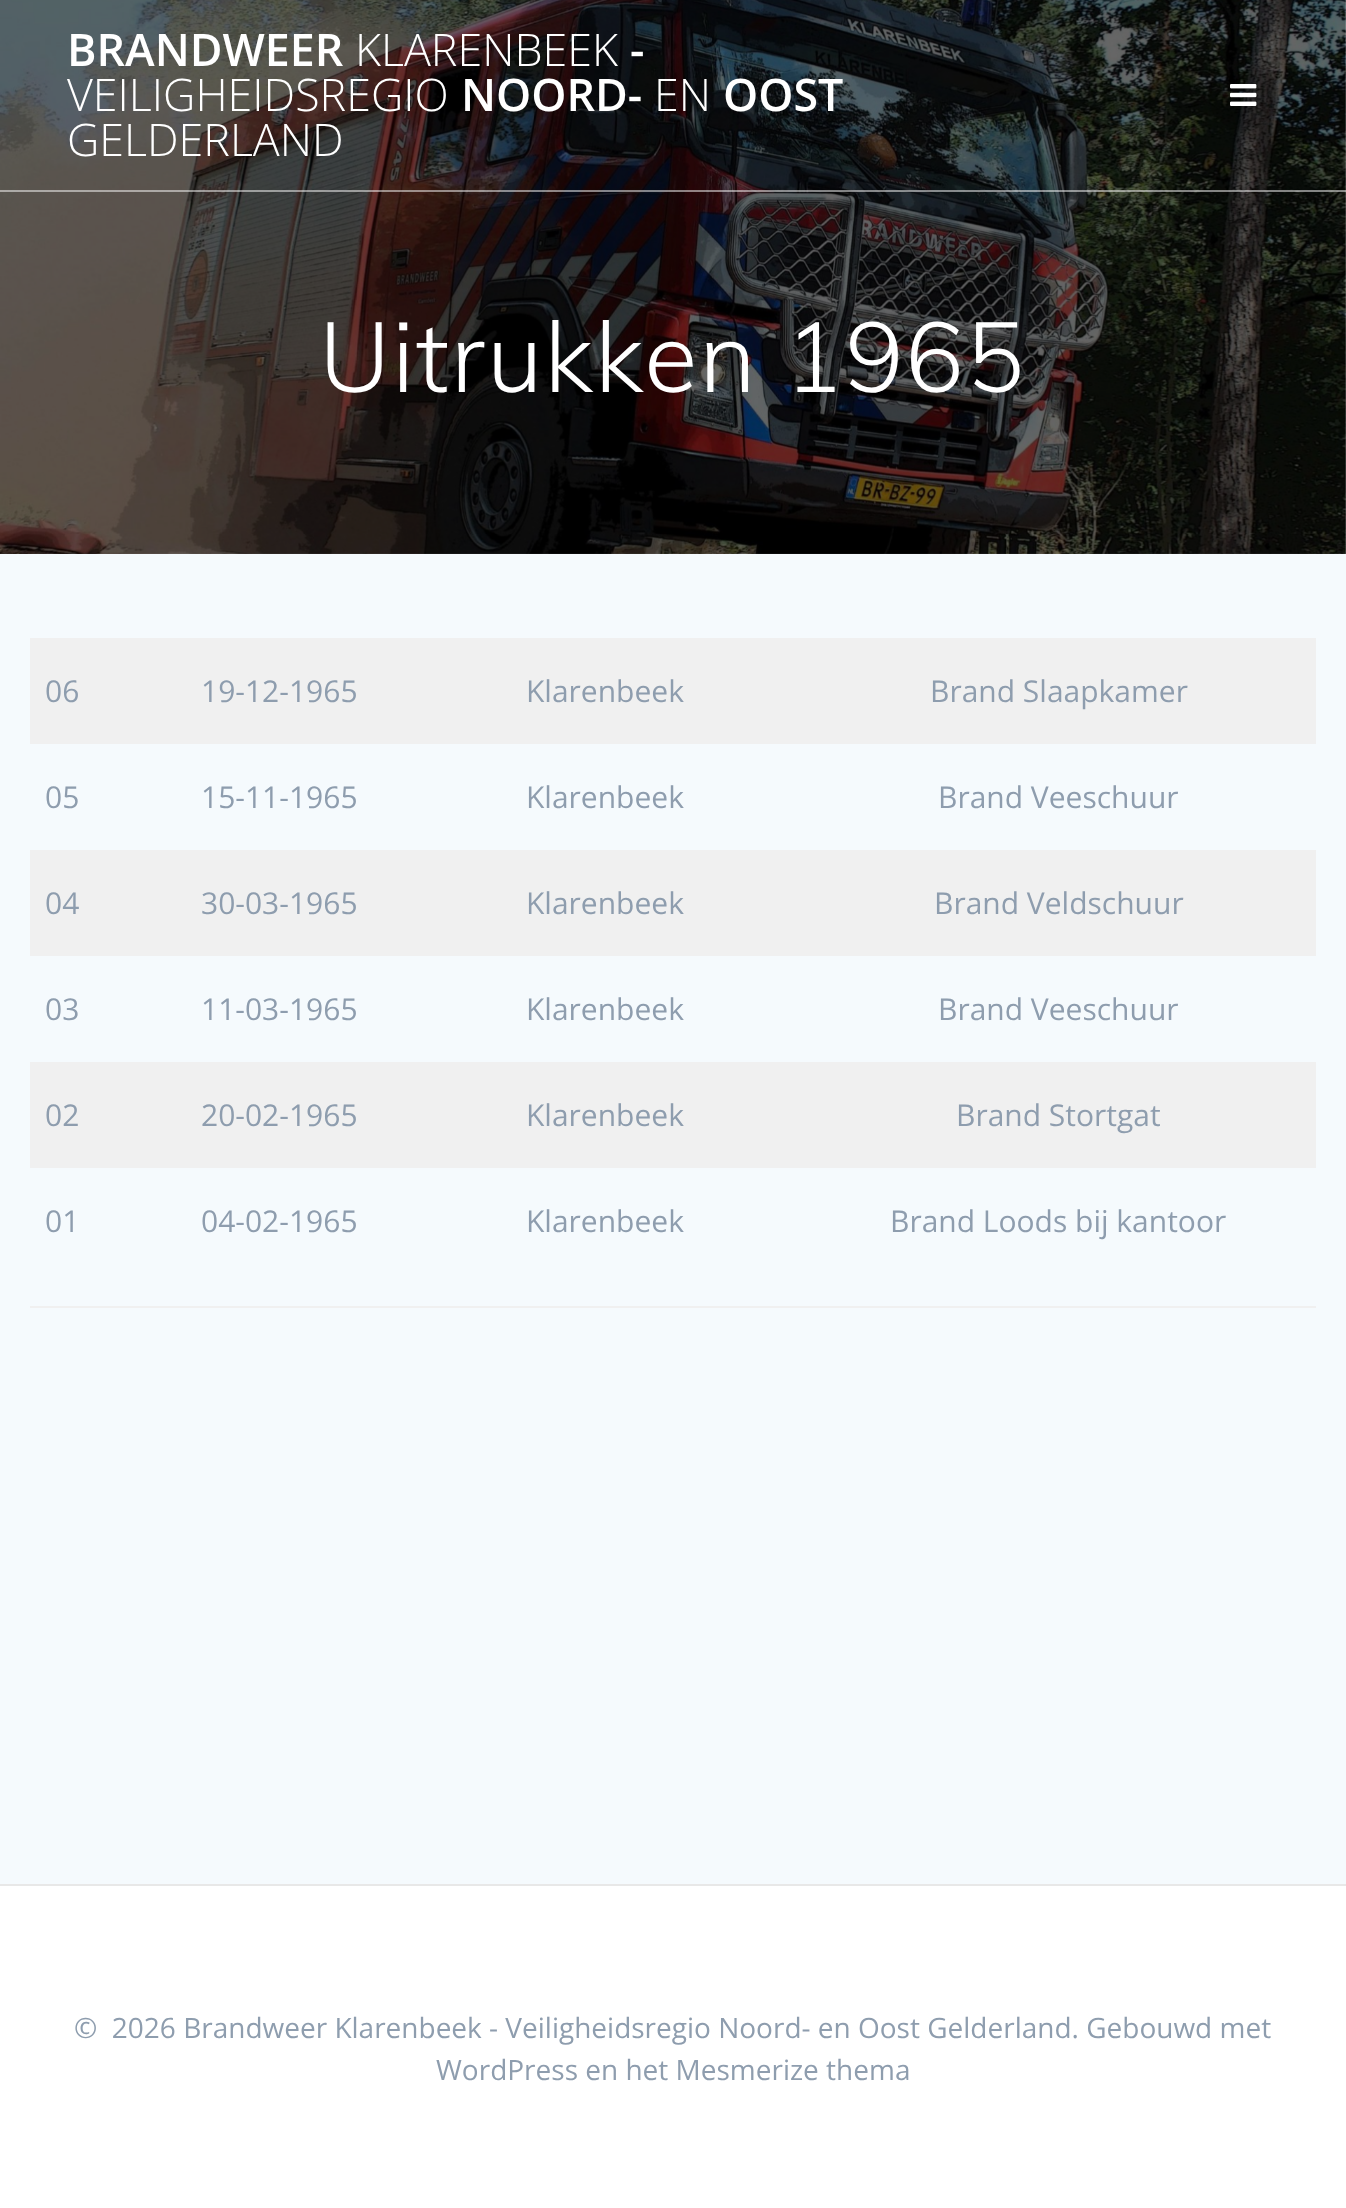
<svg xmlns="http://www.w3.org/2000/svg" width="1346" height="2208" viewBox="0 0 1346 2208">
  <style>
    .t1 { font: 600 44.75px Open Sans; fill: #fff; }
    .t2 { font: 300 44.75px Open Sans; fill: #fff; }
    .t3 { font: 300 98px Muli; letter-spacing: 1.75px; fill: #fff; }
    .t4 { font: 30px Open Sans; fill: #8e9dae; }
    .t5 { font: 28px Open Sans; fill: #8e9dae; }
  </style>
  <rect width="100%" height="100%" fill="#fff"/>
  <image x="0" y="0" width="1346" height="554" href="images/2.png"/>
  <rect x="0" y="190" width="1346" height="2" fill="#ffffff80"/>
  <text x="67" y="66" class="t1">BRANDWEER</text>
  <text x="355" y="66" class="t2">KLARENBEEK</text>
  <text x="630" y="66" class="t1">-</text>
  <text x="67" y="111" class="t2">VEILIGHEIDSREGIO</text>
  <text x="461" y="111" class="t1">NOORD-</text>
  <text x="654" y="111" class="t2">EN</text>
  <text x="723" y="111" class="t1">OOST</text>
  <text x="67" y="156" class="t2">GELDERLAND</text>
  <circle cx="1243" cy="95" r="35" fill="#0000001a"/>
  <image x="1230" y="84" width="27" height="22" href="images/1.png"/>
  <text x="319" y="392" class="t3">Uitrukken 1965</text>
  <rect x="0" y="554" width="1346" height="1330" fill="#f5fafd"/>
  <rect x="30" y="1306" width="1286" height="2" fill="#f0f0f0"/>
  <rect x="30" y="638" width="1286" height="106" fill="#f0f0f0"/>
  <text x="45" y="702" class="t4">06</text>
  <text x="201" y="702" class="t4">19-12-1965</text>
  <text x="526" y="702" class="t4">Klarenbeek</text>
  <text x="930" y="702" class="t4">Brand Slaapkamer</text>
  <text x="45" y="808" class="t4">05</text>
  <text x="201" y="808" class="t4">15-11-1965</text>
  <text x="526" y="808" class="t4">Klarenbeek</text>
  <text x="938" y="808" class="t4">Brand Veeschuur</text>
  <rect x="30" y="850" width="1286" height="106" fill="#f0f0f0"/>
  <text x="45" y="914" class="t4">04</text>
  <text x="201" y="914" class="t4">30-03-1965</text>
  <text x="526" y="914" class="t4">Klarenbeek</text>
  <text x="934" y="914" class="t4">Brand Veldschuur</text>
  <text x="45" y="1020" class="t4">03</text>
  <text x="201" y="1020" class="t4">11-03-1965</text>
  <text x="526" y="1020" class="t4">Klarenbeek</text>
  <text x="938" y="1020" class="t4">Brand Veeschuur</text>
  <rect x="30" y="1062" width="1286" height="106" fill="#f0f0f0"/>
  <text x="45" y="1126" class="t4">02</text>
  <text x="201" y="1126" class="t4">20-02-1965</text>
  <text x="526" y="1126" class="t4">Klarenbeek</text>
  <text x="956" y="1126" class="t4">Brand Stortgat</text>
  <text x="45" y="1232" class="t4">01</text>
  <text x="201" y="1232" class="t4">04-02-1965</text>
  <text x="526" y="1232" class="t4">Klarenbeek</text>
  <text x="890" y="1232" class="t4">Brand Loods bij kantoor</text>
  <rect x="0" y="1884" width="1346" height="2" fill="#e8e8e8"/>
  <text x="74" y="2038" class="t5" xml:space="preserve">©  2026 Brandweer Klarenbeek - Veiligheidsregio Noord- en Oost Gelderland. Gebouwd met</text>
  <text x="436" y="2080" class="t5">WordPress en het Mesmerize thema</text>
</svg>
